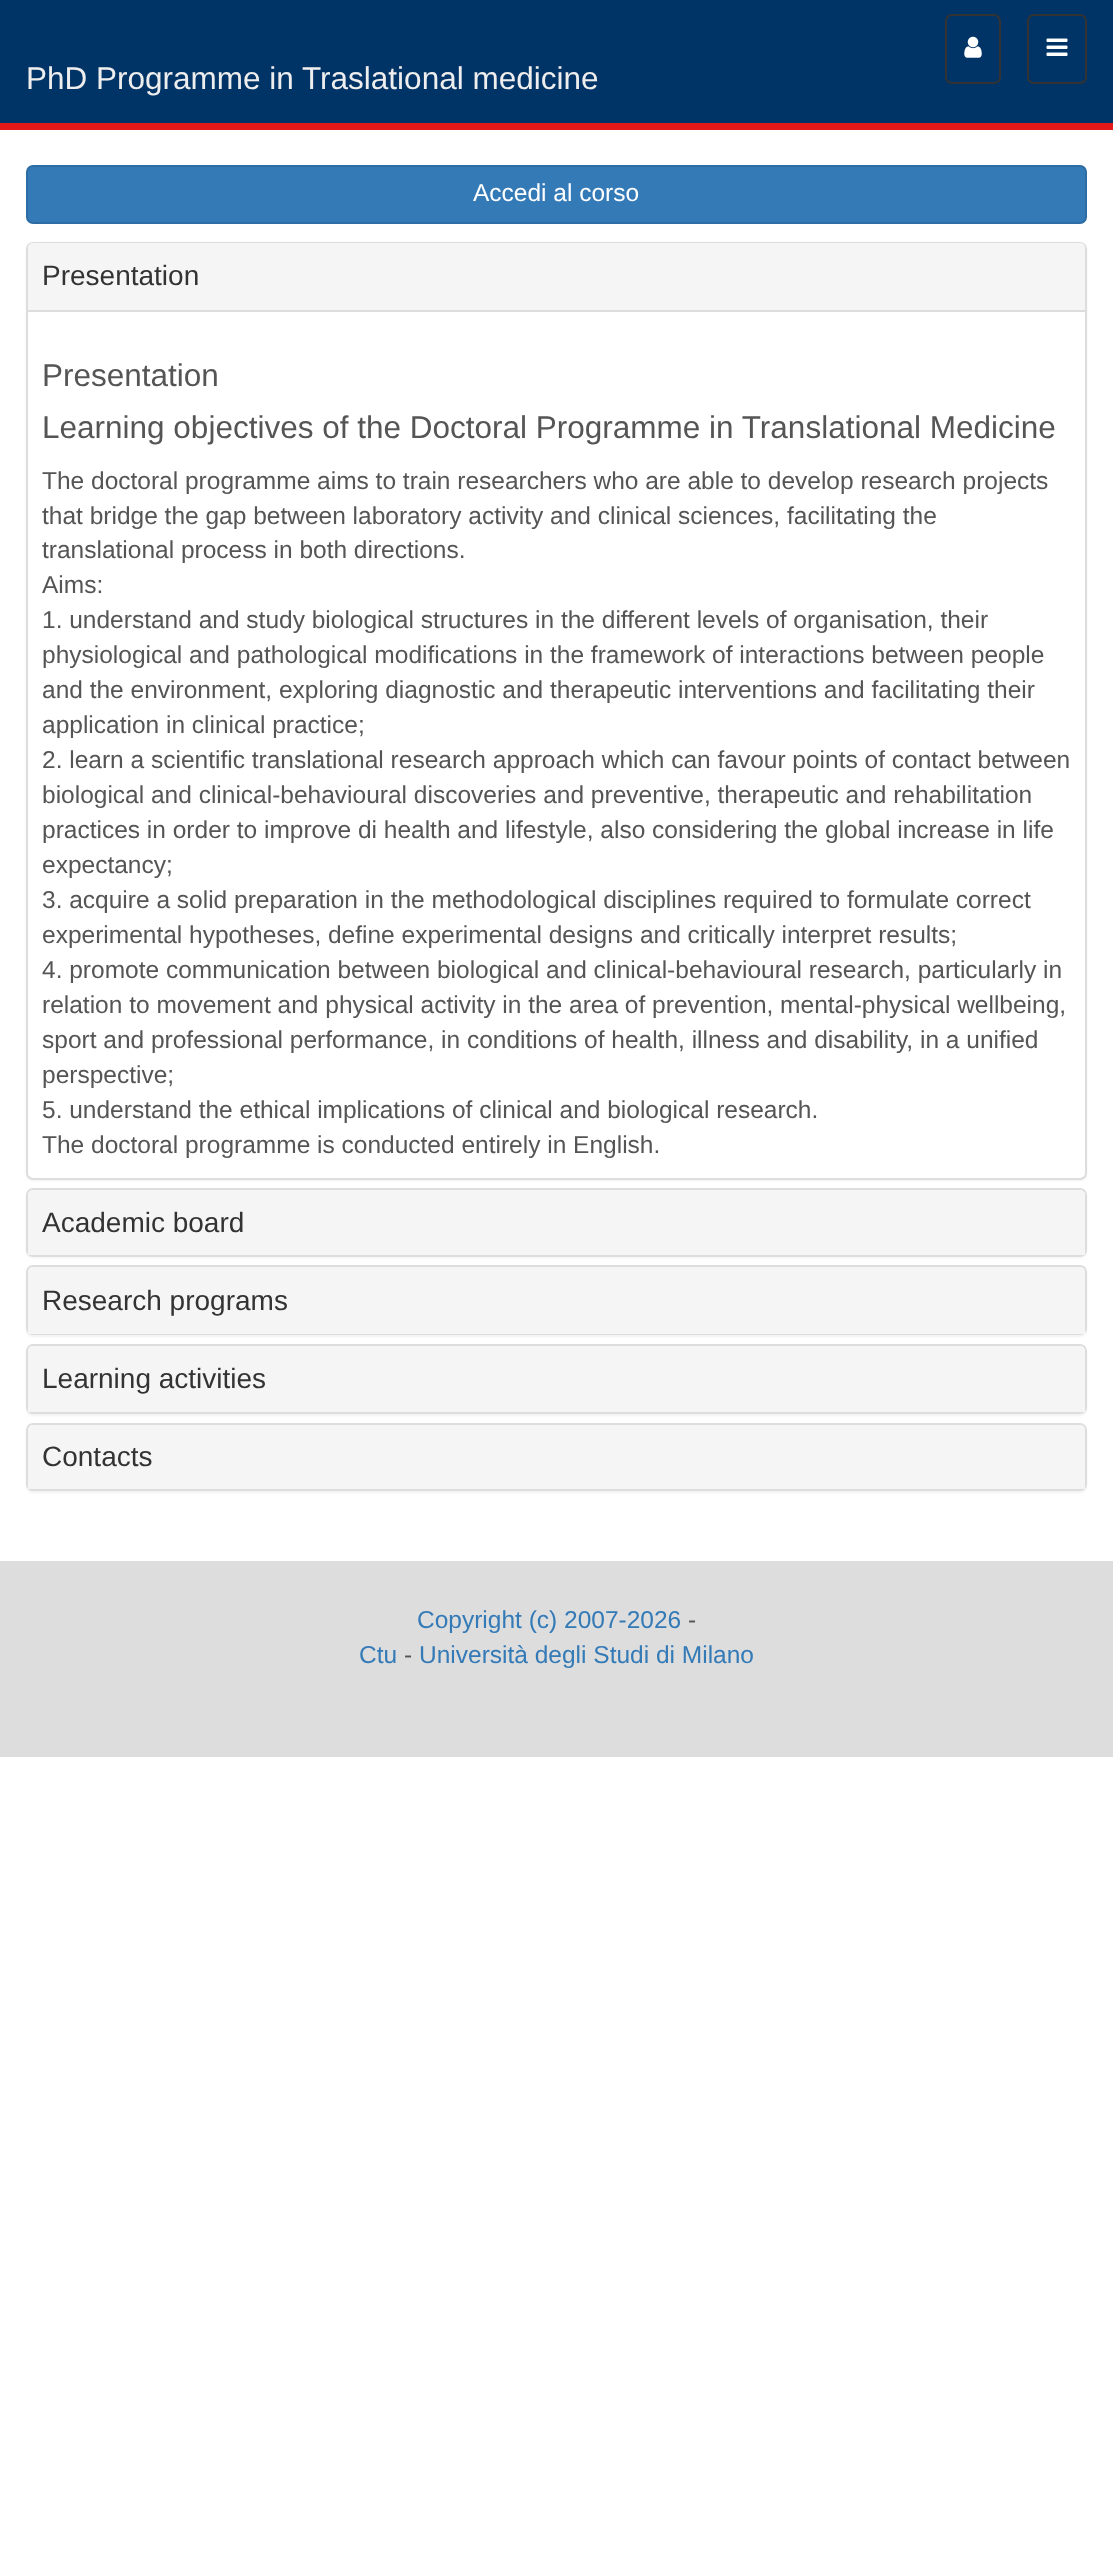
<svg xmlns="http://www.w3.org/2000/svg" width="1113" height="2559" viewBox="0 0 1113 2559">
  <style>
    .t1 { font: 31.5px Liberation Sans; fill: #eee; }
    .t2 { font: 24.5px Liberation Sans; fill: #fff; }
    .t3 { font: 28px Liberation Sans; fill: #333; }
    .t4 { font: 31.5px Liberation Sans; fill: #555; }
    .t5 { font: 24.5px Liberation Sans; fill: #555; }
    .t6 { font: 24.5px Liberation Sans; fill: #337ab7; }
  </style>
  <rect width="100%" height="100%" fill="#fff"/>
  <rect x="0" y="0" width="1113" height="123" fill="#036"/>
  <rect x="0" y="123" width="1113" height="7" fill="#e41819"/>
  <text x="26" y="89" class="t1">PhD Programme in Traslational medicine</text>
  <rect x="946" y="15" width="54" height="68" rx="6" fill="none" stroke="#333" stroke-width="2"/>
  <image x="964" y="36" width="18" height="22" href="images/1.png"/>
  <rect x="1028" y="15" width="58" height="68" rx="6" fill="none" stroke="#333" stroke-width="2"/>
  <image x="1046" y="38" width="22" height="18" href="images/2.png"/>
  <rect x="27" y="166" width="1059" height="57" rx="6" fill="#337ab7" stroke="#2e6da4" stroke-width="2"/>
  <text x="473" y="201" class="t2">Accedi al corso</text>
  <rect x="26" y="243" width="1061" height="938" rx="7" fill="#0000000d" filter="blur(1px)"/>
  <rect x="27" y="243" width="1059" height="936" rx="6" fill="#fff" stroke="#ddd" stroke-width="2"/>
  <path d="M33 243H1080C1083 243 1085 245 1085 248V310H28V248C28 245 30 243 33 243Z" fill="#f5f5f5"/>
  <text x="42" y="285" class="t3">Presentation</text>
  <rect x="28" y="310" width="1057" height="2" fill="#ddd"/>
  <text x="42" y="386" class="t4">Presentation</text>
  <text x="42" y="438" class="t4">Learning objectives of the Doctoral Programme in Translational Medicine</text>
  <text x="42" y="489" class="t5">The doctoral programme aims to train researchers who are able to develop research projects</text>
  <text x="42" y="524" class="t5">that bridge the gap between laboratory activity and clinical sciences, facilitating the</text>
  <text x="42" y="558" class="t5">translational process in both directions.</text>
  <text x="42" y="593" class="t5">Aims:</text>
  <text x="42" y="628" class="t5">1. understand and study biological structures in the different levels of organisation, their</text>
  <text x="42" y="663" class="t5">physiological and pathological modifications in the framework of interactions between people</text>
  <text x="42" y="698" class="t5">and the environment, exploring diagnostic and therapeutic interventions and facilitating their</text>
  <text x="42" y="733" class="t5">application in clinical practice;</text>
  <text x="42" y="768" class="t5">2. learn a scientific translational research approach which can favour points of contact between</text>
  <text x="42" y="803" class="t5">biological and clinical-behavioural discoveries and preventive, therapeutic and rehabilitation</text>
  <text x="42" y="838" class="t5">practices in order to improve di health and lifestyle, also considering the global increase in life</text>
  <text x="42" y="873" class="t5">expectancy;</text>
  <text x="42" y="908" class="t5">3. acquire a solid preparation in the methodological disciplines required to formulate correct</text>
  <text x="42" y="943" class="t5">experimental hypotheses, define experimental designs and critically interpret results;</text>
  <text x="42" y="978" class="t5">4. promote communication between biological and clinical-behavioural research, particularly in</text>
  <text x="42" y="1013" class="t5">relation to movement and physical activity in the area of prevention, mental-physical wellbeing,</text>
  <text x="42" y="1048" class="t5">sport and professional performance, in conditions of health, illness and disability, in a unified</text>
  <text x="42" y="1083" class="t5">perspective;</text>
  <text x="42" y="1118" class="t5">5. understand the ethical implications of clinical and biological research.</text>
  <text x="42" y="1153" class="t5">The doctoral programme is conducted entirely in English.</text>
  <rect x="26" y="1190" width="1061" height="68" rx="7" fill="#0000000d" filter="blur(1px)"/>
  <rect x="27" y="1189" width="1059" height="67" rx="6" fill="none" stroke="#ddd" stroke-width="2"/>
  <path d="M33 1190H1080C1083 1190 1085 1192 1085 1195V1255H28V1195C28 1192 30 1190 33 1190Z" fill="#f5f5f5"/>
  <text x="42" y="1232" class="t3">Academic board</text>
  <rect x="26" y="1267" width="1061" height="70" rx="7" fill="#0000000d" filter="blur(1px)"/>
  <rect x="27" y="1266" width="1059" height="68" rx="6" fill="none" stroke="#ddd" stroke-width="2"/>
  <path d="M33 1267H1080C1083 1267 1085 1269 1085 1272V1334H28V1272C28 1269 30 1267 33 1267Z" fill="#f5f5f5"/>
  <text x="42" y="1310" class="t3">Research programs</text>
  <rect x="26" y="1346" width="1061" height="70" rx="7" fill="#0000000d" filter="blur(1px)"/>
  <rect x="27" y="1345" width="1059" height="68" rx="6" fill="none" stroke="#ddd" stroke-width="2"/>
  <path d="M33 1346H1080C1083 1346 1085 1348 1085 1351V1412H28V1351C28 1348 30 1346 33 1346Z" fill="#f5f5f5"/>
  <text x="42" y="1388" class="t3">Learning activities</text>
  <rect x="26" y="1425" width="1061" height="68" rx="7" fill="#0000000d" filter="blur(1px)"/>
  <rect x="27" y="1424" width="1059" height="66" rx="6" fill="none" stroke="#ddd" stroke-width="2"/>
  <path d="M33 1425H1080C1083 1425 1085 1427 1085 1430V1489H28V1430C28 1427 30 1425 33 1425Z" fill="#f5f5f5"/>
  <text x="42" y="1466" class="t3">Contacts</text>
  <rect x="0" y="1561" width="1113" height="196" fill="#ddd"/>
  <text x="417" y="1628" class="t6">Copyright (c) 2007-2026</text>
  <text x="688" y="1628" class="t5">-</text>
  <text x="359" y="1663" class="t6">Ctu</text>
  <text x="404" y="1663" class="t5">-</text>
  <text x="419" y="1663" class="t6">Università degli Studi di Milano</text>
</svg>
